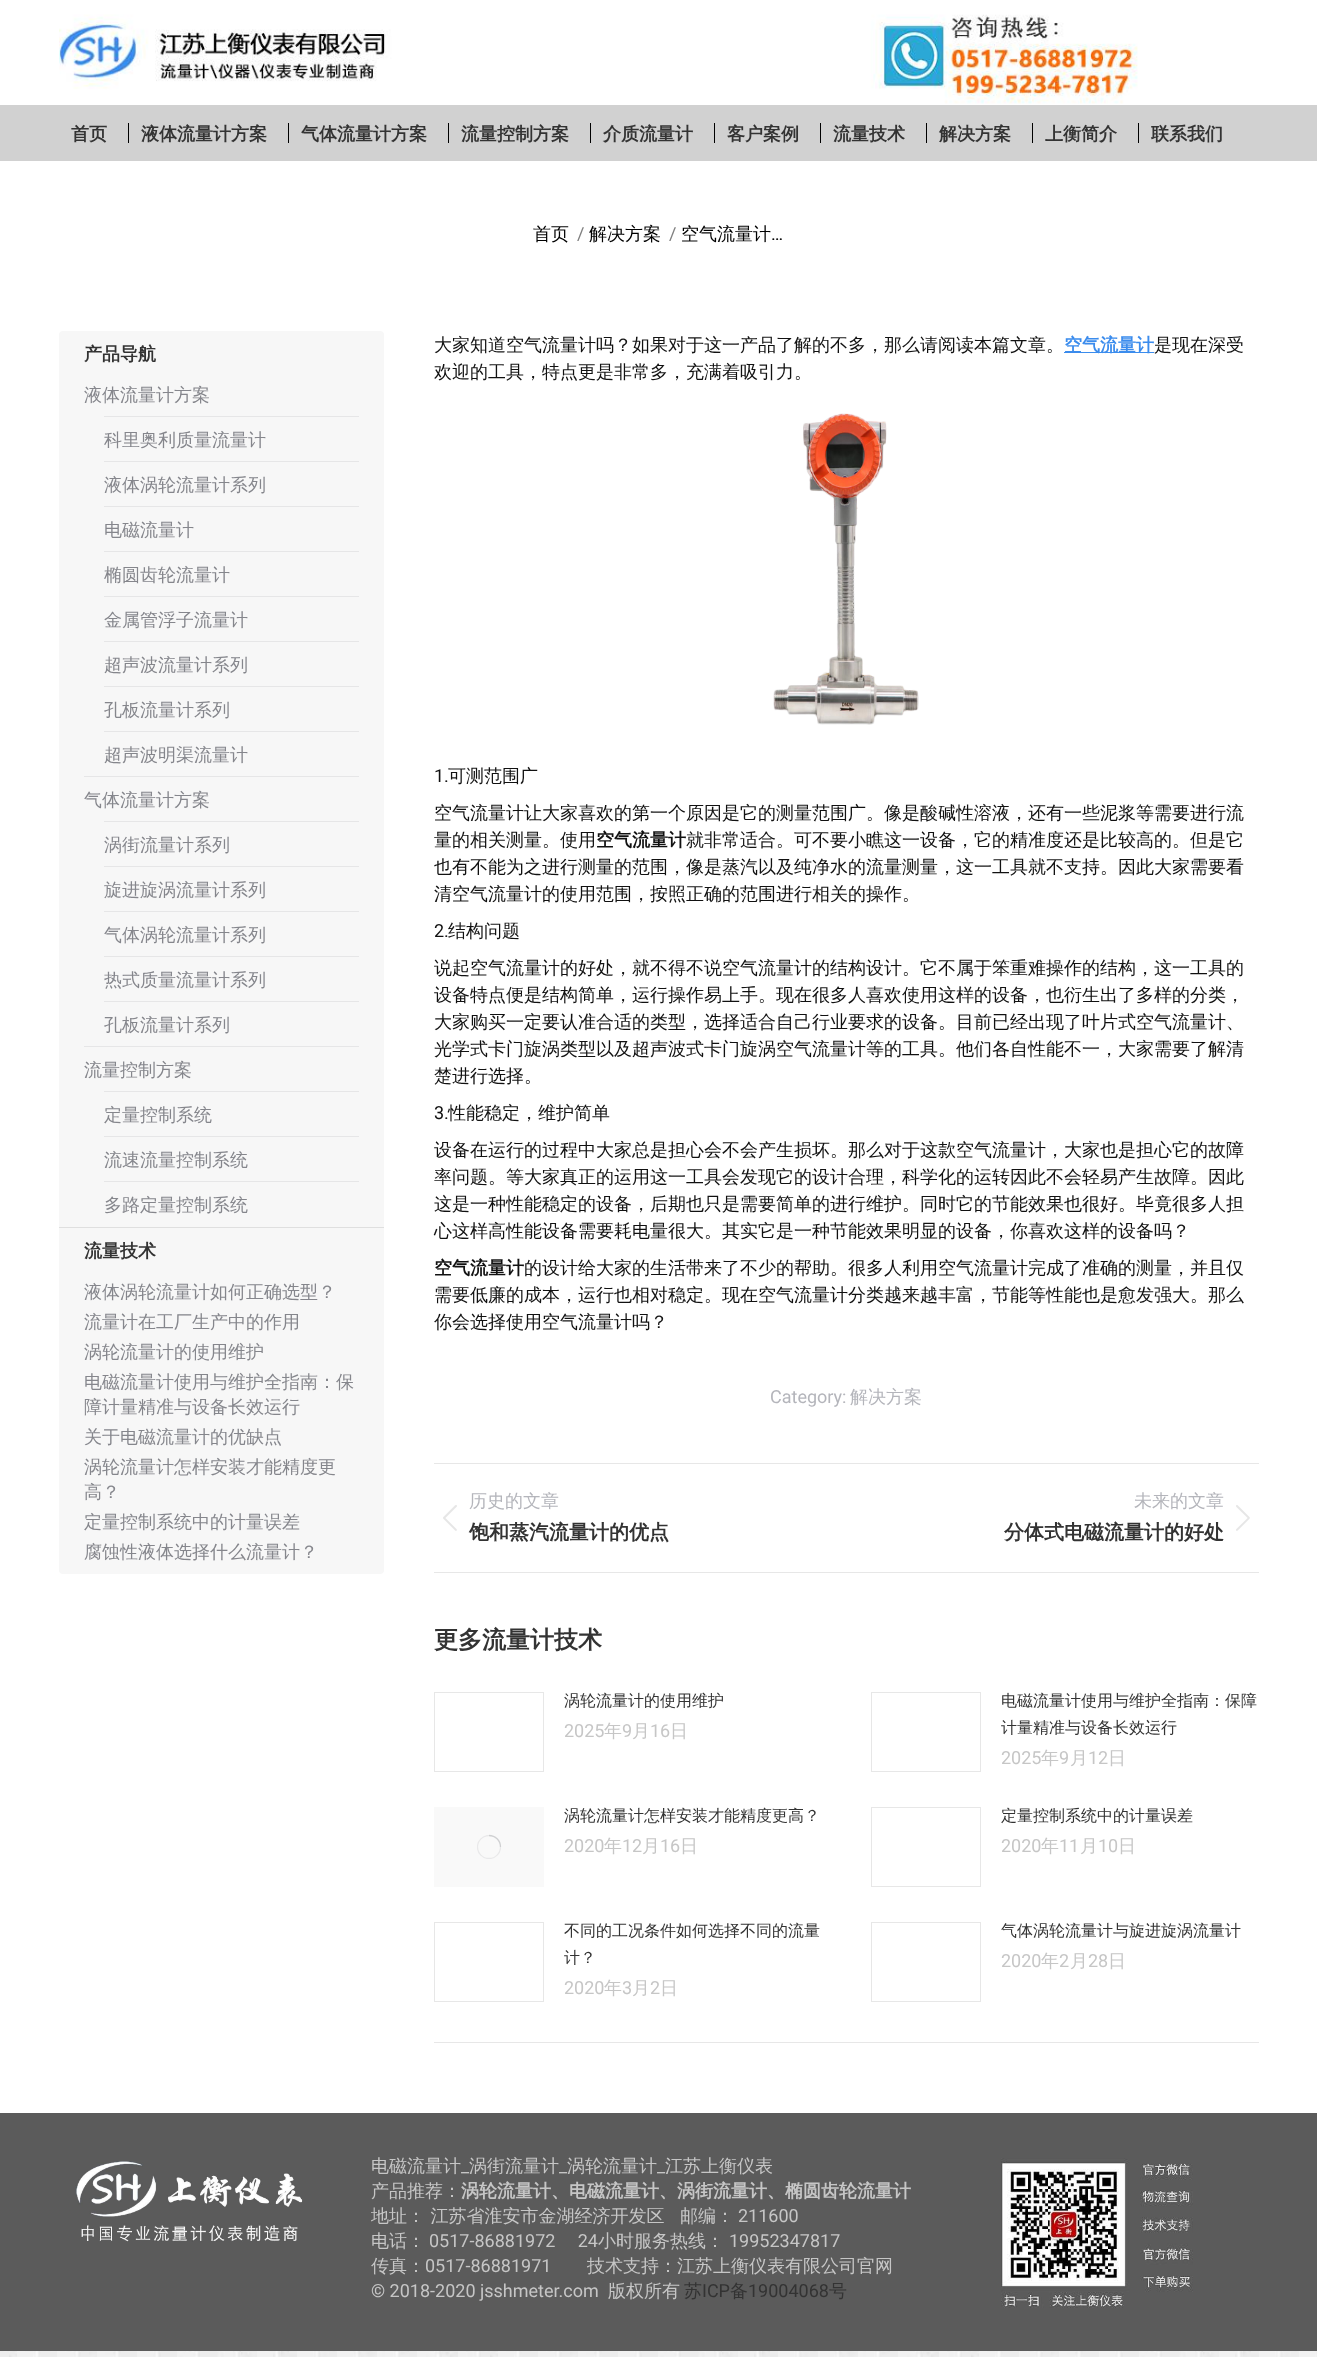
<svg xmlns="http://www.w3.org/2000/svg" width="1317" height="2357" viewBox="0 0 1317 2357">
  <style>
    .t1 { font: bold 18px WenQuanYi Zen Hei; fill: #333; }
    .t2 { font: 500 18px WenQuanYi Zen Hei; fill: #000; }
    .t3 { font: 18px Roboto; fill: #808080; }
    .t4 { font: 18px Roboto; fill: #000; }
    .t5 { font: 500 18px WenQuanYi Zen Hei; fill: #85868c; }
    .t6 { font: 500 18px WenQuanYi Zen Hei; fill: #111; }
    .t7 { font: bold 18px WenQuanYi Zen Hei; fill: #3b8ced; }
    .t8 { font: 18px Roboto; fill: #111; }
    .t9 { font: bold 18px WenQuanYi Zen Hei; fill: #111; }
    .t10 { font: 18px Roboto; fill: #b4b5bb; }
    .t11 { font: 500 18px WenQuanYi Zen Hei; fill: #b4b5bb; }
    .t12 { font: bold 20px WenQuanYi Zen Hei; fill: #333; }
    .t13 { font: bold 24px WenQuanYi Zen Hei; fill: #333; }
    .t14 { font: 500 16px WenQuanYi Zen Hei; fill: #333; }
    .t15 { font: 18px Roboto; fill: #c6c6c6; }
    .t16 { font: 500 18px WenQuanYi Zen Hei; fill: #c6c6c6; }
    .t17 { font: bold 18px WenQuanYi Zen Hei; fill: #c6c6c6; }
    .t18 { font: 500 18px WenQuanYi Zen Hei; fill: #333; }
    .t19 { font: 18px Roboto; fill: #333; }
  </style>
  <defs>
    <clipPath id="clip1"><rect x="477" y="1835" width="24" height="24"/></clipPath>
  </defs>
  <rect width="100%" height="100%" fill="#fff"/>
  <image x="0" y="2351" width="1317" height="6" href="images/1.png"/>
  <image x="59" y="14" width="1079" height="90" href="images/2.png"/>
  <rect x="0" y="105" width="1317" height="56" fill="#d1d1d1"/>
  <text x="71" y="140" class="t1">首页</text>
  <rect x="128" y="123" width="1" height="20" fill="#000"/>
  <text x="141" y="140" class="t1">液体流量计方案</text>
  <rect x="288" y="123" width="1" height="20" fill="#000"/>
  <text x="301" y="140" class="t1">气体流量计方案</text>
  <rect x="448" y="123" width="1" height="20" fill="#000"/>
  <text x="461" y="140" class="t1">流量控制方案</text>
  <rect x="590" y="123" width="1" height="20" fill="#000"/>
  <text x="603" y="140" class="t1">介质流量计</text>
  <rect x="714" y="123" width="1" height="20" fill="#000"/>
  <text x="727" y="140" class="t1">客户案例</text>
  <rect x="820" y="123" width="1" height="20" fill="#000"/>
  <text x="833" y="140" class="t1">流量技术</text>
  <rect x="926" y="123" width="1" height="20" fill="#000"/>
  <text x="939" y="140" class="t1">解决方案</text>
  <rect x="1032" y="123" width="1" height="20" fill="#000"/>
  <text x="1045" y="140" class="t1">上衡简介</text>
  <rect x="1138" y="123" width="1" height="20" fill="#000"/>
  <text x="1151" y="140" class="t1">联系我们</text>
  <text x="533" y="240" class="t2">首页</text>
  <text x="577" y="240" class="t3">/</text>
  <text x="589" y="240" class="t2">解决方案</text>
  <text x="669" y="240" class="t3">/</text>
  <text x="681" y="240" class="t2">空气流量计</text>
  <text x="771" y="240" class="t4">…</text>
  <rect x="59" y="331" width="325" height="1243" rx="4" fill="#f7f7f7"/>
  <text x="84" y="360" class="t1">产品导航</text>
  <text x="84" y="401" class="t5">液体流量计方案</text>
  <rect x="104" y="416" width="255" height="1" fill="#e6e6e7"/>
  <text x="104" y="446" class="t5">科里奥利质量流量计</text>
  <rect x="104" y="461" width="255" height="1" fill="#e6e6e7"/>
  <text x="104" y="491" class="t5">液体涡轮流量计系列</text>
  <rect x="104" y="506" width="255" height="1" fill="#e6e6e7"/>
  <text x="104" y="536" class="t5">电磁流量计</text>
  <rect x="104" y="551" width="255" height="1" fill="#e6e6e7"/>
  <text x="104" y="581" class="t5">椭圆齿轮流量计</text>
  <rect x="104" y="596" width="255" height="1" fill="#e6e6e7"/>
  <text x="104" y="626" class="t5">金属管浮子流量计</text>
  <rect x="104" y="641" width="255" height="1" fill="#e6e6e7"/>
  <text x="104" y="671" class="t5">超声波流量计系列</text>
  <rect x="104" y="686" width="255" height="1" fill="#e6e6e7"/>
  <text x="104" y="716" class="t5">孔板流量计系列</text>
  <rect x="104" y="731" width="255" height="1" fill="#e6e6e7"/>
  <text x="104" y="761" class="t5">超声波明渠流量计</text>
  <rect x="84" y="776" width="275" height="1" fill="#e6e6e7"/>
  <text x="84" y="806" class="t5">气体流量计方案</text>
  <rect x="104" y="821" width="255" height="1" fill="#e6e6e7"/>
  <text x="104" y="851" class="t5">涡街流量计系列</text>
  <rect x="104" y="866" width="255" height="1" fill="#e6e6e7"/>
  <text x="104" y="896" class="t5">旋进旋涡流量计系列</text>
  <rect x="104" y="911" width="255" height="1" fill="#e6e6e7"/>
  <text x="104" y="941" class="t5">气体涡轮流量计系列</text>
  <rect x="104" y="956" width="255" height="1" fill="#e6e6e7"/>
  <text x="104" y="986" class="t5">热式质量流量计系列</text>
  <rect x="104" y="1001" width="255" height="1" fill="#e6e6e7"/>
  <text x="104" y="1031" class="t5">孔板流量计系列</text>
  <rect x="84" y="1046" width="275" height="1" fill="#e6e6e7"/>
  <text x="84" y="1076" class="t5">流量控制方案</text>
  <rect x="104" y="1091" width="255" height="1" fill="#e6e6e7"/>
  <text x="104" y="1121" class="t5">定量控制系统</text>
  <rect x="104" y="1136" width="255" height="1" fill="#e6e6e7"/>
  <text x="104" y="1166" class="t5">流速流量控制系统</text>
  <rect x="104" y="1181" width="255" height="1" fill="#e6e6e7"/>
  <text x="104" y="1211" class="t5">多路定量控制系统</text>
  <rect x="59" y="1227" width="325" height="1" fill="#dfdfdf"/>
  <text x="84" y="1257" class="t1">流量技术</text>
  <text x="84" y="1298" class="t5">液体涡轮流量计如何正确选型？</text>
  <text x="84" y="1328" class="t5">流量计在工厂生产中的作用</text>
  <text x="84" y="1358" class="t5">涡轮流量计的使用维护</text>
  <text x="84" y="1388" class="t5">电磁流量计使用与维护全指南：保</text>
  <text x="84" y="1413" class="t5">障计量精准与设备长效运行</text>
  <text x="84" y="1443" class="t5">关于电磁流量计的优缺点</text>
  <text x="84" y="1473" class="t5">涡轮流量计怎样安装才能精度更</text>
  <text x="84" y="1498" class="t5">高？</text>
  <text x="84" y="1528" class="t5">定量控制系统中的计量误差</text>
  <text x="84" y="1558" class="t5">腐蚀性液体选择什么流量计？</text>
  <text x="434" y="351" class="t6">大家知道空气流量计吗？如果对于这一产品了解的不多，那么请阅读本篇文章。</text>
  <rect x="1064" y="352" width="90" height="1" fill="#3b8ced"/>
  <text x="1064" y="351" class="t7">空气流量计</text>
  <text x="1154" y="351" class="t6">是现在深受</text>
  <text x="434" y="378" class="t6">欢迎的工具，特点更是非常多，充满着吸引力。</text>
  <image x="773" y="413" width="146" height="312" href="images/3.png"/>
  <text x="434" y="782" class="t8">1.</text>
  <text x="448" y="782" class="t6">可测范围广</text>
  <text x="434" y="819" class="t6">空气流量计让大家喜欢的第一个原因是它的测量范围广。像是酸碱性溶液，还有一些泥浆等需要进行流</text>
  <text x="434" y="846" class="t6">量的相关测量。使用</text>
  <text x="596" y="846" class="t9">空气流量计</text>
  <text x="686" y="846" class="t6">就非常适合。可不要小瞧这一设备，它的精准度还是比较高的。但是它</text>
  <text x="434" y="873" class="t6">也有不能为之进行测量的范围，像是蒸汽以及纯净水的流量测量，这一工具就不支持。因此大家需要看</text>
  <text x="434" y="900" class="t6">清空气流量计的使用范围，按照正确的范围进行相关的操作。</text>
  <text x="434" y="937" class="t8">2.</text>
  <text x="448" y="937" class="t6">结构问题</text>
  <text x="434" y="974" class="t6">说起空气流量计的好处，就不得不说空气流量计的结构设计。它不属于笨重难操作的结构，这一工具的</text>
  <text x="434" y="1001" class="t6">设备特点便是结构简单，运行操作易上手。现在很多人喜欢使用这样的设备，也衍生出了多样的分类，</text>
  <text x="434" y="1028" class="t6">大家购买一定要认准合适的类型，选择适合自己行业要求的设备。目前已经出现了叶片式空气流量计、</text>
  <text x="434" y="1055" class="t6">光学式卡门旋涡类型以及超声波式卡门旋涡空气流量计等的工具。他们各自性能不一，大家需要了解清</text>
  <text x="434" y="1082" class="t6">楚进行选择。</text>
  <text x="434" y="1119" class="t8">3.</text>
  <text x="448" y="1119" class="t6">性能稳定，维护简单</text>
  <text x="434" y="1156" class="t6">设备在运行的过程中大家总是担心会不会产生损坏。那么对于这款空气流量计，大家也是担心它的故障</text>
  <text x="434" y="1183" class="t6">率问题。等大家真正的运用这一工具会发现它的设计合理，科学化的运转因此不会轻易产生故障。因此</text>
  <text x="434" y="1210" class="t6">这是一种性能稳定的设备，后期也只是需要简单的进行维护。同时它的节能效果也很好。毕竟很多人担</text>
  <text x="434" y="1237" class="t6">心这样高性能设备需要耗电量很大。其实它是一种节能效果明显的设备，你喜欢这样的设备吗？</text>
  <text x="434" y="1274" class="t9">空气流量计</text>
  <text x="524" y="1274" class="t6">的设计给大家的生活带来了不少的帮助。很多人利用空气流量计完成了准确的测量，并且仅</text>
  <text x="434" y="1301" class="t6">需要低廉的成本，运行也相对稳定。现在空气流量计分类越来越丰富，节能等性能也是愈发强大。那么</text>
  <text x="434" y="1328" class="t6">你会选择使用空气流量计吗？</text>
  <text x="770" y="1403" class="t10">Category:</text>
  <text x="850" y="1403" class="t11">解决方案</text>
  <rect x="434" y="1463" width="825" height="1" fill="#e7e7e7"/>
  <rect x="434" y="1572" width="825" height="1" fill="#e7e7e7"/>
  <text x="469" y="1507" class="t11">历史的文章</text>
  <image x="443" y="1505" width="14" height="26" href="images/4.png"/>
  <text x="469" y="1539" class="t12">饱和蒸汽流量计的优点</text>
  <text x="1134" y="1507" class="t11">未来的文章</text>
  <text x="1004" y="1539" class="t12">分体式电磁流量计的好处</text>
  <image x="1236" y="1505" width="14" height="26" href="images/5.png"/>
  <rect x="434" y="2042" width="825" height="1" fill="#e7e7e7"/>
  <text x="434" y="1648" class="t13">更多流量计技术</text>
  <rect x="434.5" y="1692.5" width="109" height="79" fill="none" stroke="#e7e7e7"/>
  <text x="564" y="1706" class="t14">涡轮流量计的使用维护</text>
  <text x="564" y="1737" class="t15">2025</text>
  <text x="604" y="1737" class="t16">年</text>
  <text x="622" y="1737" class="t15">9</text>
  <text x="632" y="1737" class="t16">月</text>
  <text x="650" y="1737" class="t15">16</text>
  <text x="670" y="1737" class="t16">日</text>
  <rect x="871.5" y="1692.5" width="109" height="79" fill="none" stroke="#e7e7e7"/>
  <text x="1001" y="1706" class="t14">电磁流量计使用与维护全指南：保障</text>
  <text x="1001" y="1733" class="t14">计量精准与设备长效运行</text>
  <text x="1001" y="1764" class="t15">2025</text>
  <text x="1041" y="1764" class="t16">年</text>
  <text x="1059" y="1764" class="t15">9</text>
  <text x="1070" y="1764" class="t16">月</text>
  <text x="1088" y="1764" class="t15">12</text>
  <text x="1108" y="1764" class="t16">日</text>
  <rect x="434" y="1807" width="110" height="80" fill="#f9f9f9"/>
  <g clip-path="url(#clip1)">
    <circle cx="489" cy="1847" r="11.5" fill="none" stroke="#e9e9ea" stroke-width="1.3"/>
  </g>
  <path d="M500.5 1847C500.5 1840.5 495.5 1835.5 489 1835.5" fill="none" stroke="#85868c40" stroke-width="1.3"/>
  <text x="564" y="1821" class="t14">涡轮流量计怎样安装才能精度更高？</text>
  <text x="564" y="1852" class="t15">2020</text>
  <text x="604" y="1852" class="t16">年</text>
  <text x="622" y="1852" class="t15">12</text>
  <text x="642" y="1852" class="t16">月</text>
  <text x="660" y="1852" class="t15">16</text>
  <text x="680" y="1852" class="t16">日</text>
  <rect x="871.5" y="1807.5" width="109" height="79" fill="none" stroke="#e7e7e7"/>
  <text x="1001" y="1821" class="t14">定量控制系统中的计量误差</text>
  <text x="1001" y="1852" class="t15">2020</text>
  <text x="1041" y="1852" class="t16">年</text>
  <text x="1059" y="1852" class="t15">11</text>
  <text x="1080" y="1852" class="t16">月</text>
  <text x="1098" y="1852" class="t15">10</text>
  <text x="1118" y="1852" class="t16">日</text>
  <rect x="434.5" y="1922.5" width="109" height="79" fill="none" stroke="#e7e7e7"/>
  <text x="564" y="1936" class="t14">不同的工况条件如何选择不同的流量</text>
  <text x="564" y="1963" class="t14">计？</text>
  <text x="564" y="1994" class="t15">2020</text>
  <text x="604" y="1994" class="t16">年</text>
  <text x="622" y="1994" class="t15">3</text>
  <text x="632" y="1994" class="t16">月</text>
  <text x="650" y="1994" class="t15">2</text>
  <text x="660" y="1994" class="t16">日</text>
  <rect x="871.5" y="1922.5" width="109" height="79" fill="none" stroke="#e7e7e7"/>
  <text x="1001" y="1936" class="t14">气体涡轮流量计与旋进旋涡流量计</text>
  <text x="1001" y="1967" class="t15">2020</text>
  <text x="1041" y="1967" class="t16">年</text>
  <text x="1059" y="1967" class="t15">2</text>
  <text x="1070" y="1967" class="t16">月</text>
  <text x="1088" y="1967" class="t15">28</text>
  <text x="1108" y="1967" class="t16">日</text>
  <rect x="0" y="2113" width="1317" height="238" fill="#5b5b5b"/>
  <image x="75" y="2161" width="228" height="81" href="images/6.png"/>
  <text x="371" y="2172" class="t16">电磁流量计</text>
  <text x="461" y="2172" class="t15">_</text>
  <text x="469" y="2172" class="t16">涡街流量计</text>
  <text x="559" y="2172" class="t15">_</text>
  <text x="567" y="2172" class="t16">涡轮流量计</text>
  <text x="657" y="2172" class="t15">_</text>
  <text x="665" y="2172" class="t16">江苏上衡仪表</text>
  <text x="371" y="2197" class="t16">产品推荐：</text>
  <text x="461" y="2197" class="t17">涡轮流量计、电磁流量计、涡街流量计、椭圆齿轮流量计</text>
  <text x="371" y="2222" class="t16">地址： 江苏省淮安市金湖经济开发区</text>
  <text x="680" y="2222" class="t16">邮编：</text>
  <text x="738" y="2222" class="t15">211600</text>
  <text x="371" y="2247" class="t16">电话：</text>
  <text x="429" y="2247" class="t15" xml:space="preserve">0517-86881972     24</text>
  <text x="598" y="2247" class="t16">小时服务热线：</text>
  <text x="729" y="2247" class="t15">19952347817</text>
  <text x="371" y="2272" class="t16">传真：</text>
  <text x="425" y="2272" class="t15">0517-86881971</text>
  <text x="587" y="2272" class="t16">技术支持：江苏上衡仪表有限公司官网</text>
  <text x="371" y="2297" class="t15">© 2018-2020 jsshmeter.com</text>
  <text x="608" y="2297" class="t16">版权所有</text>
  <text x="684" y="2297" class="t18">苏</text>
  <text x="702" y="2297" class="t19">ICP</text>
  <text x="730" y="2297" class="t18">备</text>
  <text x="748" y="2297" class="t19">19004068</text>
  <text x="829" y="2297" class="t18">号</text>
  <image x="1001" y="2158" width="192" height="150" href="images/7.png"/>
</svg>
